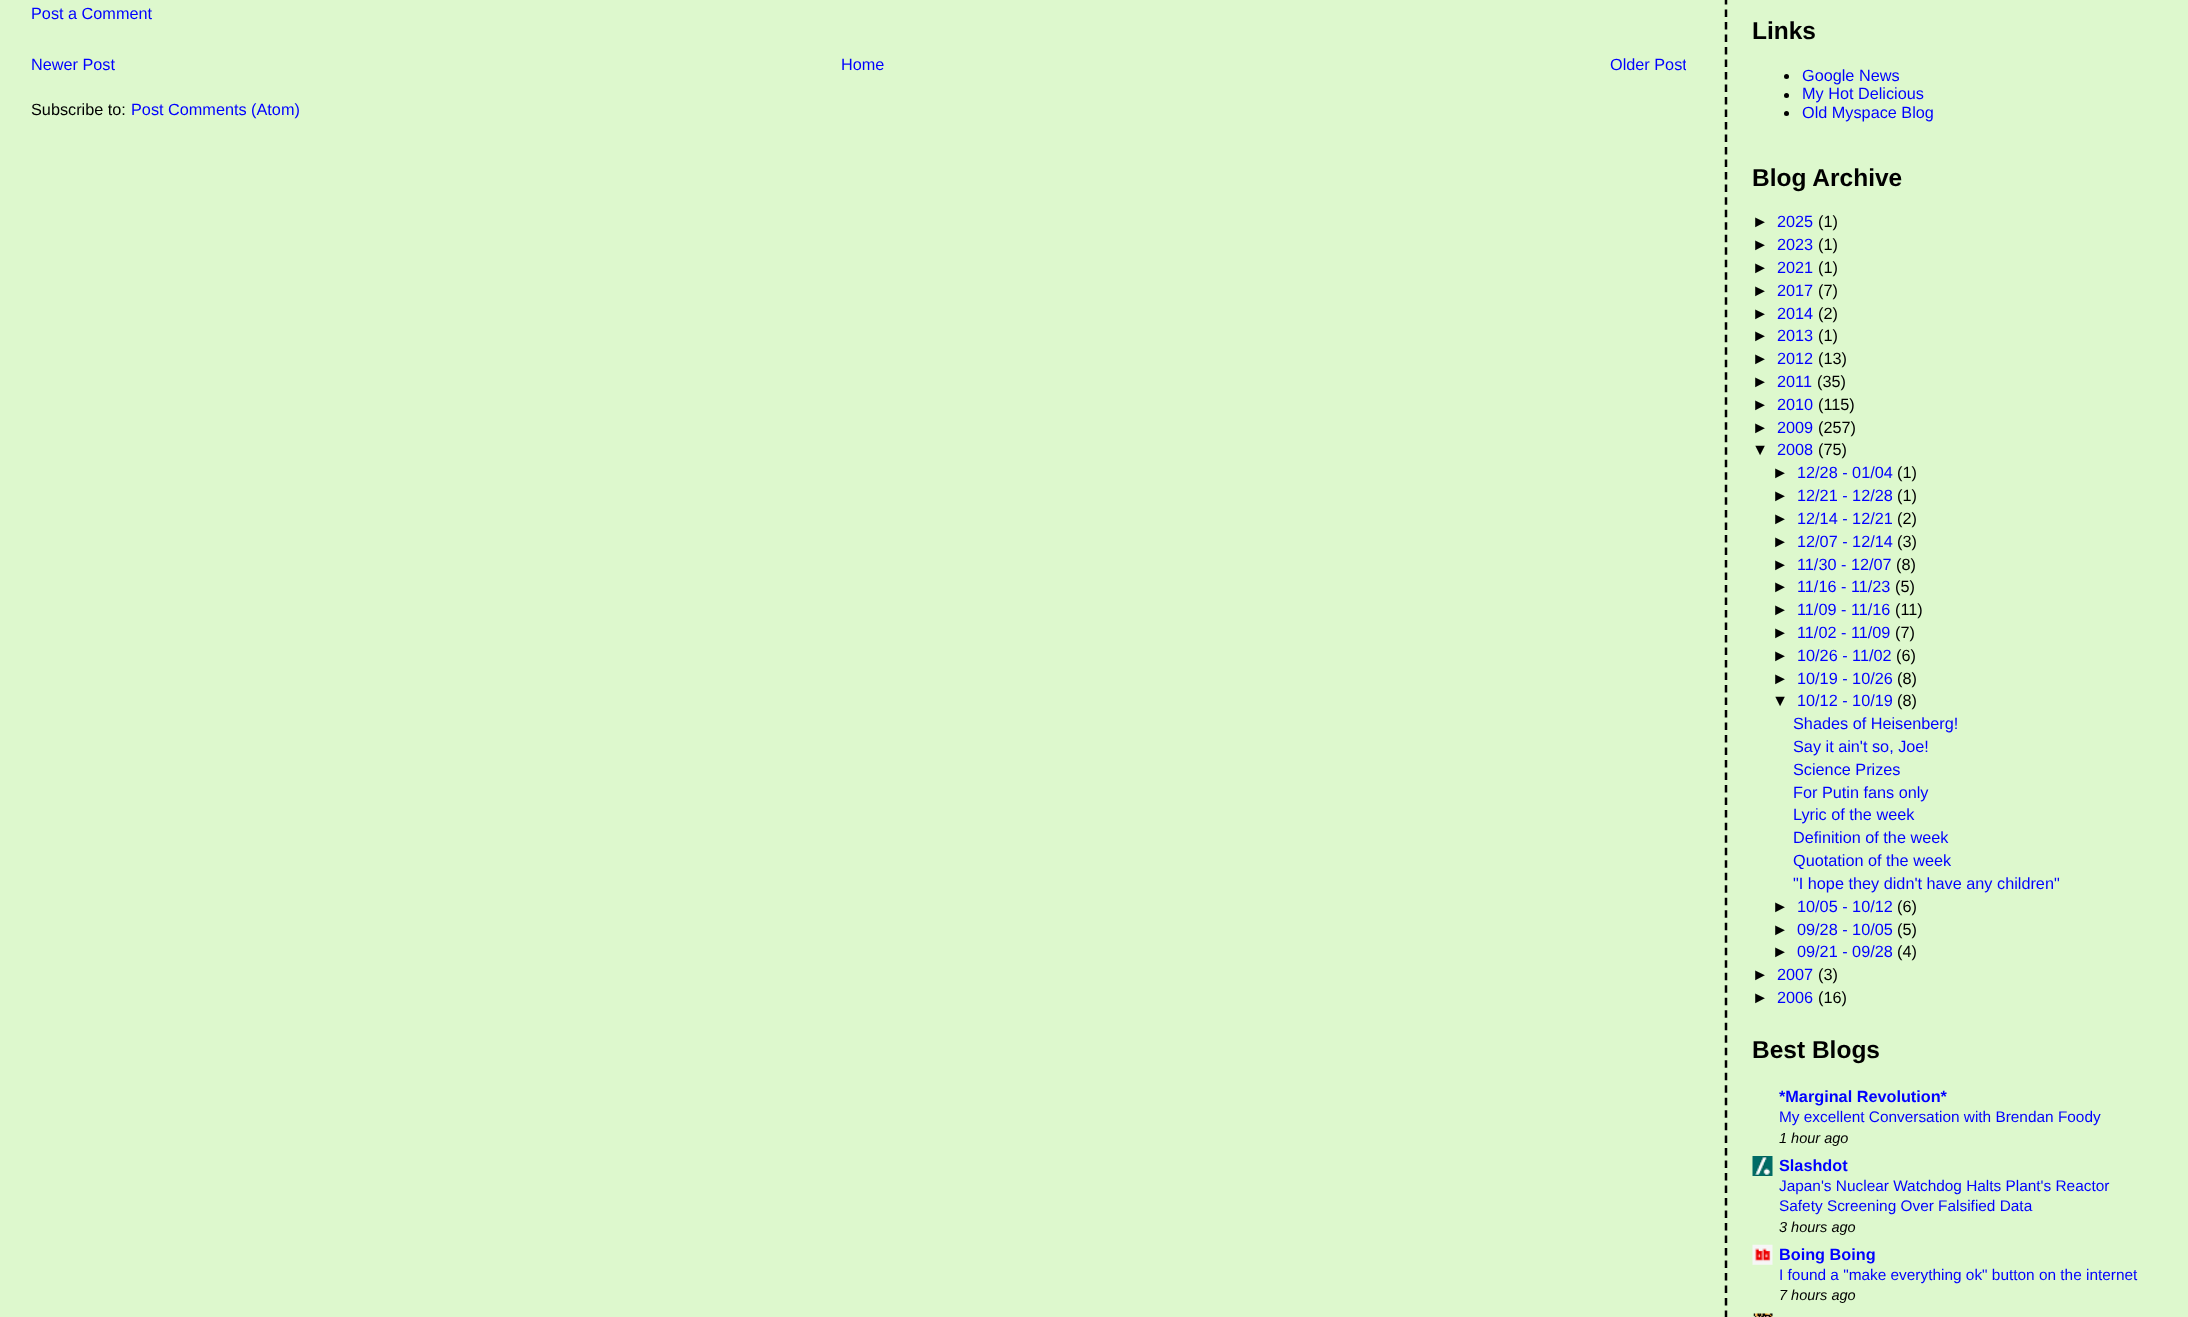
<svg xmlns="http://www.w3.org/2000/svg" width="2188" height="1317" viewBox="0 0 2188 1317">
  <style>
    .t1 { font: 16.25px Liberation Sans; fill: #00f; }
    .t2 { font: 16.25px Liberation Sans; fill: #000; }
    .t3 { font: bold 24.5px Liberation Sans; fill: #000; }
    .t4 { font: bold 16.25px Liberation Sans; fill: #00f; }
    .t5 { font: 15.4px Liberation Sans; fill: #00f; }
    .t6 { font: italic 14.5px Liberation Sans; fill: #000; }
  </style>
  <defs>
    <clipPath id="clip1"><rect x="6" y="55" width="1680" height="19"/></clipPath>
  </defs>
  <rect width="100%" height="100%" fill="#ddf8cd"/>
  <text x="31" y="19" class="t1">Post a Comment</text>
  <text x="31" y="70" class="t1">Newer Post</text>
  <text x="841" y="70" class="t1">Home</text>
  <g clip-path="url(#clip1)">
    <text x="1610" y="70" class="t1">Older Post</text>
  </g>
  <text x="31" y="115" class="t2">Subscribe to:</text>
  <text x="131" y="115" class="t1">Post Comments (Atom)</text>
  <path d="M1726-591V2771" fill="none" stroke="#000" stroke-width="2.5" stroke-dasharray="7.5 5.01"/>
  <text x="1752" y="39" class="t3">Links</text>
  <circle cx="1786.5" cy="76.5" r="2.5" fill="#000"/>
  <text x="1802" y="81" class="t1">Google News</text>
  <circle cx="1786.5" cy="95.5" r="2.5" fill="#000"/>
  <text x="1802" y="99" class="t1">My Hot Delicious</text>
  <circle cx="1786.5" cy="113.5" r="2.5" fill="#000"/>
  <text x="1802" y="118" class="t1">Old Myspace Blog</text>
  <text x="1752" y="186" class="t3">Blog Archive</text>
  <text x="1752" y="227" class="t2">►</text>
  <text x="1777" y="227" class="t1">2025</text>
  <text x="1818" y="227" class="t2">(1)</text>
  <text x="1752" y="250" class="t2">►</text>
  <text x="1777" y="250" class="t1">2023</text>
  <text x="1818" y="250" class="t2">(1)</text>
  <text x="1752" y="273" class="t2">►</text>
  <text x="1777" y="273" class="t1">2021</text>
  <text x="1818" y="273" class="t2">(1)</text>
  <text x="1752" y="296" class="t2">►</text>
  <text x="1777" y="296" class="t1">2017</text>
  <text x="1818" y="296" class="t2">(7)</text>
  <text x="1752" y="319" class="t2">►</text>
  <text x="1777" y="319" class="t1">2014</text>
  <text x="1818" y="319" class="t2">(2)</text>
  <text x="1752" y="341" class="t2">►</text>
  <text x="1777" y="341" class="t1">2013</text>
  <text x="1818" y="341" class="t2">(1)</text>
  <text x="1752" y="364" class="t2">►</text>
  <text x="1777" y="364" class="t1">2012</text>
  <text x="1818" y="364" class="t2">(13)</text>
  <text x="1752" y="387" class="t2">►</text>
  <text x="1777" y="387" class="t1">2011</text>
  <text x="1817" y="387" class="t2">(35)</text>
  <text x="1752" y="410" class="t2">►</text>
  <text x="1777" y="410" class="t1">2010</text>
  <text x="1818" y="410" class="t2">(115)</text>
  <text x="1752" y="433" class="t2">►</text>
  <text x="1777" y="433" class="t1">2009</text>
  <text x="1818" y="433" class="t2">(257)</text>
  <text x="1752" y="455" class="t2">▼</text>
  <text x="1777" y="455" class="t1">2008</text>
  <text x="1818" y="455" class="t2">(75)</text>
  <text x="1772" y="478" class="t2">►</text>
  <text x="1797" y="478" class="t1">12/28 - 01/04</text>
  <text x="1897" y="478" class="t2">(1)</text>
  <text x="1772" y="501" class="t2">►</text>
  <text x="1797" y="501" class="t1">12/21 - 12/28</text>
  <text x="1897" y="501" class="t2">(1)</text>
  <text x="1772" y="524" class="t2">►</text>
  <text x="1797" y="524" class="t1">12/14 - 12/21</text>
  <text x="1897" y="524" class="t2">(2)</text>
  <text x="1772" y="547" class="t2">►</text>
  <text x="1797" y="547" class="t1">12/07 - 12/14</text>
  <text x="1897" y="547" class="t2">(3)</text>
  <text x="1772" y="570" class="t2">►</text>
  <text x="1797" y="570" class="t1">11/30 - 12/07</text>
  <text x="1896" y="570" class="t2">(8)</text>
  <text x="1772" y="592" class="t2">►</text>
  <text x="1797" y="592" class="t1">11/16 - 11/23</text>
  <text x="1895" y="592" class="t2">(5)</text>
  <text x="1772" y="615" class="t2">►</text>
  <text x="1797" y="615" class="t1">11/09 - 11/16</text>
  <text x="1895" y="615" class="t2">(11)</text>
  <text x="1772" y="638" class="t2">►</text>
  <text x="1797" y="638" class="t1">11/02 - 11/09</text>
  <text x="1895" y="638" class="t2">(7)</text>
  <text x="1772" y="661" class="t2">►</text>
  <text x="1797" y="661" class="t1">10/26 - 11/02</text>
  <text x="1896" y="661" class="t2">(6)</text>
  <text x="1772" y="684" class="t2">►</text>
  <text x="1797" y="684" class="t1">10/19 - 10/26</text>
  <text x="1897" y="684" class="t2">(8)</text>
  <text x="1772" y="706" class="t2">▼</text>
  <text x="1797" y="706" class="t1">10/12 - 10/19</text>
  <text x="1897" y="706" class="t2">(8)</text>
  <text x="1793" y="729" class="t1">Shades of Heisenberg!</text>
  <text x="1793" y="752" class="t1">Say it ain't so, Joe!</text>
  <text x="1793" y="775" class="t1">Science Prizes</text>
  <text x="1793" y="798" class="t1">For Putin fans only</text>
  <text x="1793" y="820" class="t1">Lyric of the week</text>
  <text x="1793" y="843" class="t1">Definition of the week</text>
  <text x="1793" y="866" class="t1">Quotation of the week</text>
  <text x="1793" y="889" class="t1">"I hope they didn't have any children"</text>
  <text x="1772" y="912" class="t2">►</text>
  <text x="1797" y="912" class="t1">10/05 - 10/12</text>
  <text x="1897" y="912" class="t2">(6)</text>
  <text x="1772" y="935" class="t2">►</text>
  <text x="1797" y="935" class="t1">09/28 - 10/05</text>
  <text x="1897" y="935" class="t2">(5)</text>
  <text x="1772" y="957" class="t2">►</text>
  <text x="1797" y="957" class="t1">09/21 - 09/28</text>
  <text x="1897" y="957" class="t2">(4)</text>
  <text x="1752" y="980" class="t2">►</text>
  <text x="1777" y="980" class="t1">2007</text>
  <text x="1818" y="980" class="t2">(3)</text>
  <text x="1752" y="1003" class="t2">►</text>
  <text x="1777" y="1003" class="t1">2006</text>
  <text x="1818" y="1003" class="t2">(16)</text>
  <text x="1752" y="1058" class="t3">Best Blogs</text>
  <text x="1779" y="1102" class="t4">*Marginal Revolution*</text>
  <text x="1779" y="1122" class="t5">My excellent Conversation with Brendan Foody</text>
  <text x="1779" y="1143" class="t6">1 hour ago</text>
  <image x="1752" y="1156" width="21" height="20" href="images/1.png"/>
  <text x="1779" y="1171" class="t4">Slashdot</text>
  <text x="1779" y="1191" class="t5">Japan's Nuclear Watchdog Halts Plant's Reactor</text>
  <text x="1779" y="1211" class="t5">Safety Screening Over Falsified Data</text>
  <text x="1779" y="1232" class="t6">3 hours ago</text>
  <image x="1752" y="1244" width="21" height="21" href="images/2.png"/>
  <text x="1779" y="1260" class="t4">Boing Boing</text>
  <text x="1779" y="1280" class="t5">I found a "make everything ok" button on the internet</text>
  <text x="1779" y="1300" class="t6">7 hours ago</text>
  <image x="1753" y="1313" width="20" height="4" href="images/3.png"/>
</svg>
